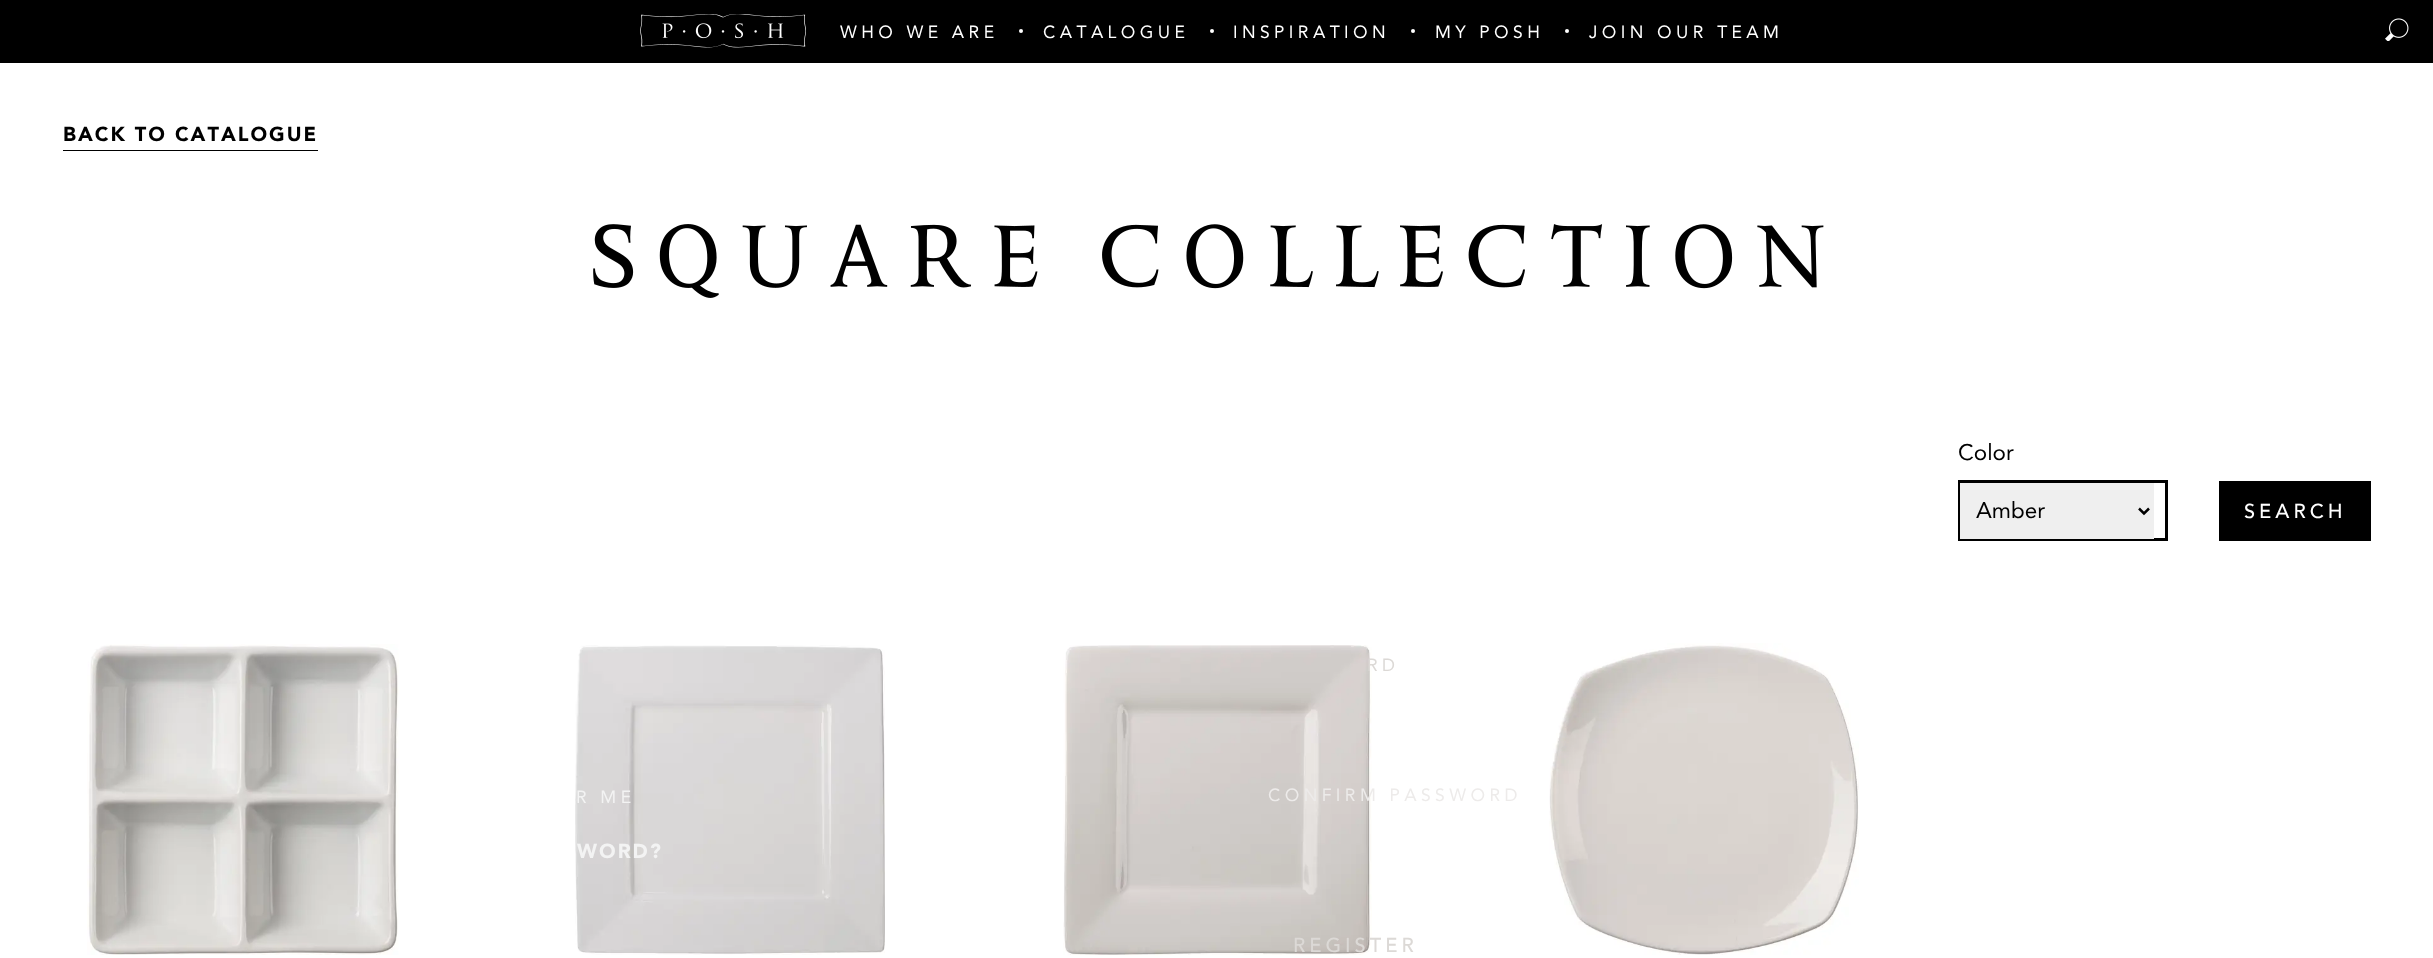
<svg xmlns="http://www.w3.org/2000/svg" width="2433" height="958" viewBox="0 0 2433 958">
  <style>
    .t1 { font: 17.5px Avenir; letter-spacing: 4.4px; fill: #fff; }
    .t2 { font: 20px 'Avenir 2'; letter-spacing: 2px; fill: #000; }
    .t3 { font: 22.5px Avenir; fill: #000; }
    .t4 { font: 20px 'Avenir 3'; letter-spacing: 4px; fill: #fff; }
    .t5 { font: 17.5px Avenir; letter-spacing: 4.4px; fill: #f3f3f3; }
    .t6 { font: 20px 'Avenir 2'; letter-spacing: 2px; fill: #f3f3f3; }
    .t7 { font: 17.5px Avenir; letter-spacing: 4.4px; fill: #dcd9d6; }
    .t8 { font: 17.5px Avenir; letter-spacing: 4.4px; fill: #edebea; }
    .t9 { font: 20px 'Avenir 3'; letter-spacing: 4px; fill: #dcd9d6; }
  </style>
  <rect width="100%" height="100%" fill="#fff"/>
  <rect x="0" y="0" width="2433" height="63" fill="#000"/>
  <image x="640" y="14" width="166" height="34" href="images/1.png"/>
  <text x="840" y="38" class="t1">WHO WE ARE</text>
  <circle cx="1021" cy="31" r="2" fill="#fff"/>
  <text x="1043" y="38" class="t1">CATALOGUE</text>
  <circle cx="1212" cy="31" r="2" fill="#fff"/>
  <text x="1233" y="38" class="t1">INSPIRATION</text>
  <circle cx="1413" cy="31" r="2" fill="#fff"/>
  <text x="1435" y="38" class="t1">MY POSH</text>
  <circle cx="1567" cy="31" r="2" fill="#fff"/>
  <text x="1589" y="38" class="t1">JOIN OUR TEAM</text>
  <image x="2385" y="18" width="24" height="23" href="images/2.png"/>
  <rect x="63" y="150" width="255" height="1" fill="#000"/>
  <text x="63" y="141" class="t2">BACK TO CATALOGUE</text>
  <image x="593" y="224" width="1231" height="74" href="images/3.png"/>
  <text x="1958" y="460" class="t3">Color</text>
  <rect x="1959.5" y="481.5" width="207" height="58" fill="none" stroke="#000" stroke-width="3"/>
  <rect x="1960" y="483" width="194" height="56" fill="#efefef"/>
  <path d="M2139 508.5L2144 513.5L2149 508.5" fill="none" stroke="#000" stroke-width="2.5"/>
  <text x="1976" y="518" class="t3">Amber</text>
  <rect x="2219" y="481" width="152" height="60" fill="#000"/>
  <text x="2244" y="518" class="t4">SEARCH</text>
  <image x="87" y="644" width="312" height="311" href="images/4.png"/>
  <image x="575" y="645" width="310" height="310" href="images/5.png"/>
  <image x="1063" y="645" width="309" height="311" href="images/6.png"/>
  <image x="1549" y="643" width="310" height="312" href="images/7.png"/>
  <text x="576" y="803" class="t5">R ME</text>
  <text x="577" y="858" class="t6">WORD?</text>
  <text x="1367" y="671" class="t7">RD</text>
  <text x="1268" y="801" class="t8">CONFIRM PASSWORD</text>
  <text x="1293" y="952" class="t9">REGISTER</text>
</svg>
